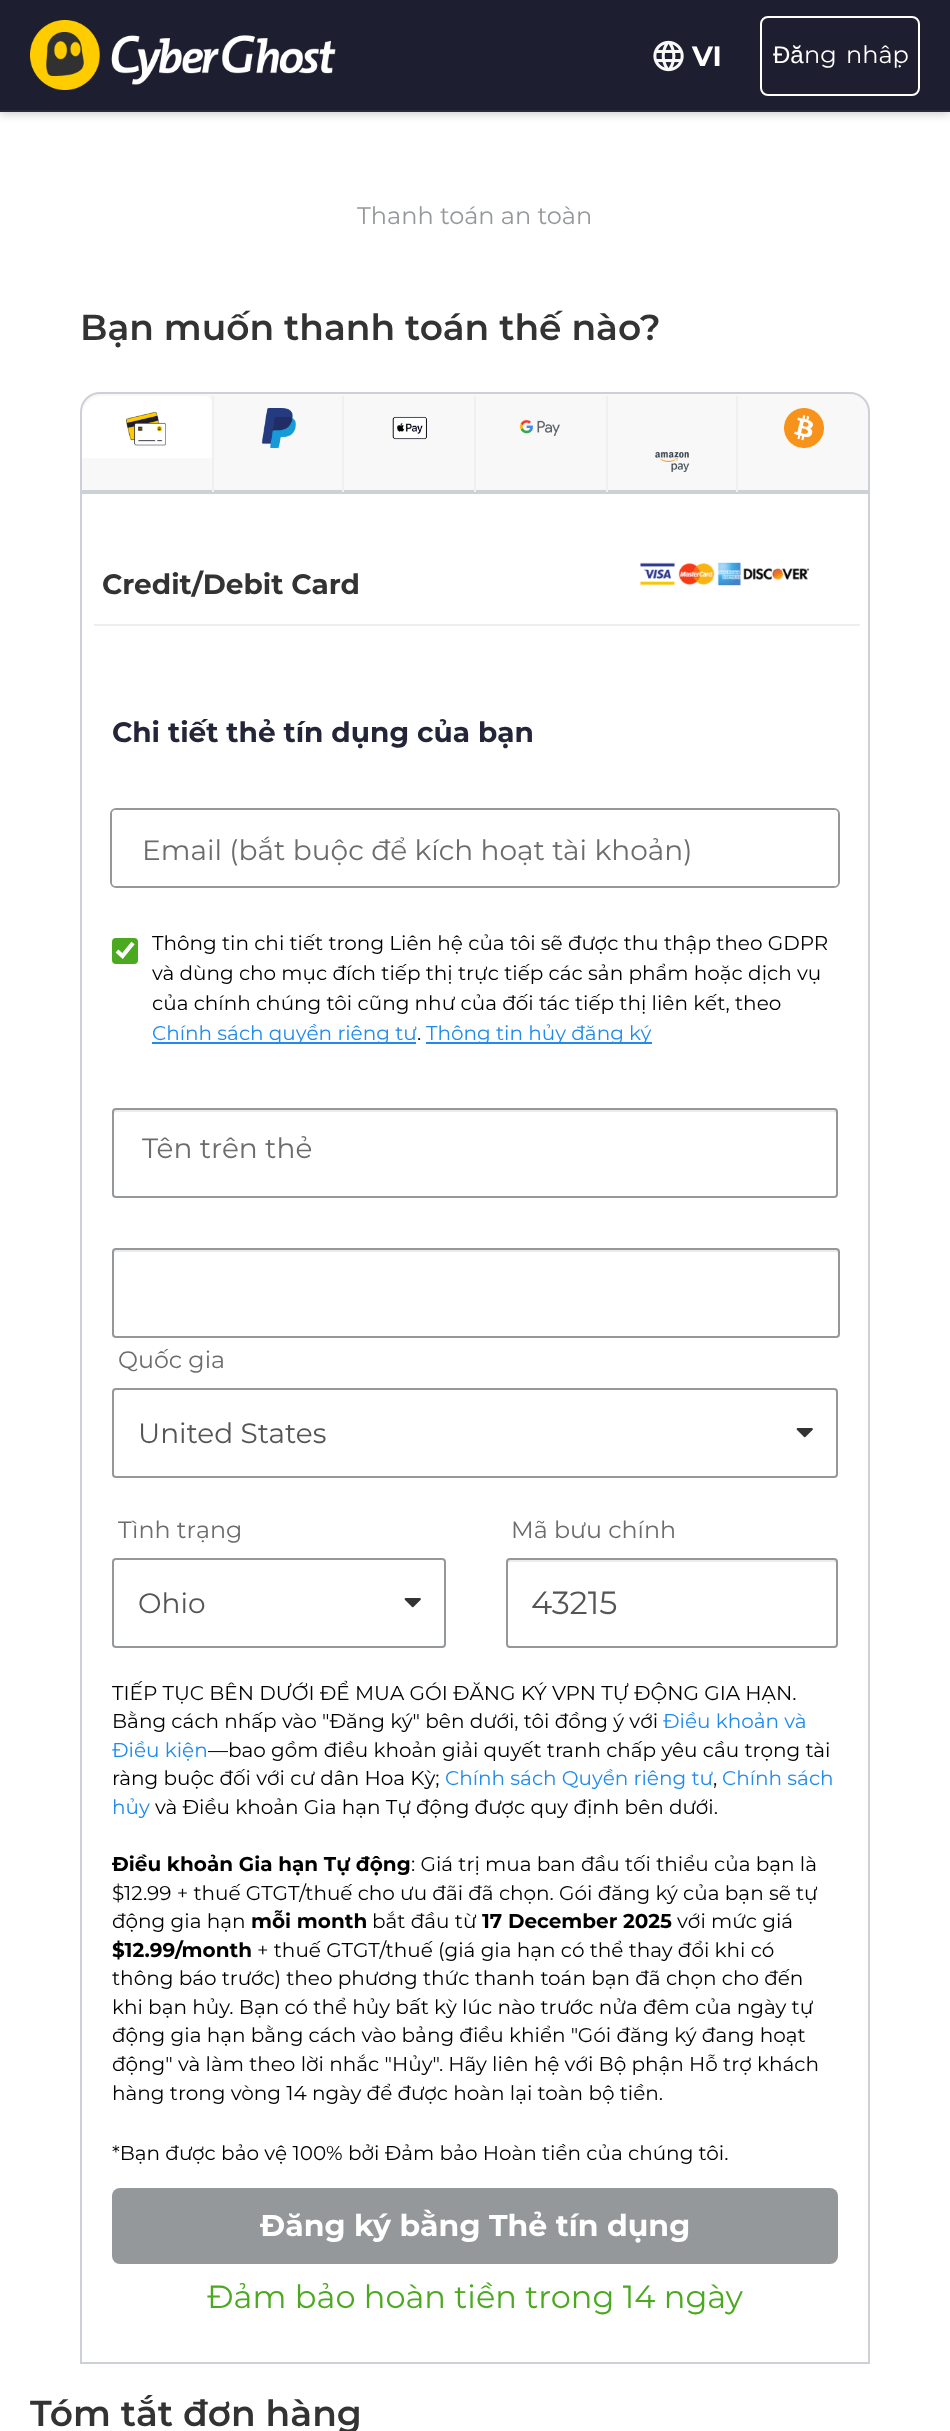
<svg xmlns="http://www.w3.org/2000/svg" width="950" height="2431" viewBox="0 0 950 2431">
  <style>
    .t1 { font: 100 28px 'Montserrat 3'; fill: #fff; }
    .t2 { font: 24px Liberation Sans; fill: #fff; }
    .t3 { font: 100 24px Montserrat; fill: #fff; }
    .t4 { font: 100 24px Montserrat; fill: #95989a; }
    .t5 { font: 100 36px 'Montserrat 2'; fill: #333; }
    .t6 { font: 100 28px 'Montserrat 3'; fill: #333; }
    .t7 { font: 100 28px 'Montserrat 3'; fill: #242538; }
    .t8 { font: 100 28px Montserrat; fill: #6c6c6c; }
    .t9 { font: 100 20px Montserrat; fill: #000; }
    .t10 { font: 100 20px Montserrat; fill: #218bed; }
    .t11 { font: 100 23.75px Montserrat; fill: #6c6c6c; }
    .t12 { font: 100 28px Montserrat; fill: #555; }
    .t13 { font: 100 32px Montserrat; fill: #555; }
    .t14 { font: 100 20px 'Montserrat 3'; fill: #000; }
    .t15 { font: 100 30px 'Montserrat 3'; fill: #fff; }
    .t16 { font: 100 32px Montserrat; fill: #4ba920; }
  </style>
  <rect width="100%" height="100%" fill="#fff"/>
  <rect x="0" y="2" width="950" height="112" fill="#00000033" filter="blur(5px)"/>
  <rect x="0" y="0" width="950" height="110" fill="#1d1e2f"/>
  <rect x="0" y="110" width="950" height="2" fill="#282939"/>
  <image x="30" y="20" width="306" height="70" href="images/1.png"/>
  <image x="653" y="40" width="31" height="32" href="images/2.png"/>
  <text x="692" y="66" class="t1">VI</text>
  <rect x="761" y="17" width="158" height="78" rx="7" fill="none" stroke="#fff" stroke-width="2"/>
  <text x="773" y="63" class="t2">Đă</text>
  <text x="804" y="63" word-spacing="3" class="t3">ng nhập</text>
  <text x="357" y="224" class="t4">Thanh toán an toàn</text>
  <text x="80" y="340" class="t5">Bạn muốn thanh toán thế nào?</text>
  <path d="M100 393H850C860.5 393 869 401.5 869 412V491H81V412C81 401.5 89.5 393 100 393Z" fill="#f8f8f8" stroke="#cdd1d7" stroke-width="2"/>
  <rect x="212" y="396" width="2" height="96" fill="#f0f0f0"/>
  <path d="M102 396H204C208.5 396 212 399.5 212 404V458H82V416C82 405 91 396 102 396Z" fill="#fff"/>
  <image x="126" y="411" width="40" height="35" href="images/3.png"/>
  <rect x="342" y="396" width="2" height="96" fill="#f0f0f0"/>
  <image x="261" y="408" width="35" height="40" href="images/4.png"/>
  <rect x="474" y="396" width="2" height="96" fill="#f0f0f0"/>
  <image x="392" y="416" width="35" height="24" href="images/5.png"/>
  <rect x="606" y="396" width="2" height="96" fill="#f0f0f0"/>
  <image x="520" y="420" width="40" height="16" href="images/6.png"/>
  <rect x="736" y="396" width="2" height="96" fill="#f0f0f0"/>
  <image x="655" y="452" width="35" height="21" href="images/7.png"/>
  <image x="784" y="408" width="40" height="40" href="images/8.png"/>
  <rect x="81" y="493" width="788" height="1870" fill="none" stroke="#cdd1d7" stroke-width="2"/>
  <text x="102" y="594" class="t6">Credit/Debit Card</text>
  <image x="640" y="562" width="169" height="24" href="images/9.png"/>
  <rect x="94" y="624" width="766" height="2" fill="#eee"/>
  <text x="112" y="742" class="t7">Chi tiết thẻ tín dụng của bạn</text>
  <rect x="111" y="809" width="728" height="78" rx="5" fill="none" stroke="#95989a" stroke-width="2"/>
  <rect x="112" y="810" width="726" height="76" rx="4" fill="#fff"/>
  <text x="142" y="860" class="t8">Email (bắt buộc để kích hoạt tài khoản)</text>
  <rect x="112" y="938" width="26" height="26" rx="4" fill="#4ba920"/>
  <path d="M117 951L122.5 956L133 943" fill="none" stroke="#fff" stroke-width="4.2"/>
  <text x="152" y="950" class="t9">Thông tin chi tiết trong Liên hệ của tôi sẽ được thu thập theo GDPR</text>
  <text x="152" y="980" class="t9">và dùng cho mục đích tiếp thị trực tiếp các sản phẩm hoặc dịch vụ</text>
  <text x="152" y="1010" class="t9">của chính chúng tôi cũng như của đối tác tiếp thị liên kết, theo</text>
  <rect x="152" y="1042" width="264" height="2" fill="#218bed"/>
  <text x="152" y="1040" class="t10">Chính sách quyền riêng tư</text>
  <text x="417" y="1040" class="t9">.</text>
  <rect x="426" y="1042" width="226" height="2" fill="#218bed"/>
  <text x="426" y="1040" class="t10">Thông tin hủy đăng ký</text>
  <path d="M116 1112H834C835 1112 836 1113 836 1114V1111L834 1110H115C114 1111 114 1113 114 1114C114 1113 115 1112 116 1112Z" fill="#ececec"/>
  <rect x="113" y="1109" width="724" height="88" rx="3" fill="none" stroke="#95989a" stroke-width="2"/>
  <text x="142" y="1158" class="t8">Tên trên thẻ</text>
  <path d="M116 1252H836C837 1252 838 1253 838 1254V1251L836 1250H115C114 1251 114 1253 114 1254C114 1253 115 1252 116 1252Z" fill="#ececec"/>
  <rect x="113" y="1249" width="726" height="88" rx="3" fill="none" stroke="#95989a" stroke-width="2"/>
  <text x="118" y="1368" class="t11">Quốc gia</text>
  <rect x="113" y="1389" width="724" height="88" rx="3" fill="none" stroke="#95989a" stroke-width="2"/>
  <text x="138" y="1443" class="t12">United States</text>
  <image x="796" y="1428" width="17" height="10" href="images/10.png"/>
  <text x="118" y="1538" class="t11">Tình trạng</text>
  <rect x="113" y="1559" width="332" height="88" rx="3" fill="none" stroke="#95989a" stroke-width="2"/>
  <text x="138" y="1613" class="t12">Ohio</text>
  <image x="404" y="1598" width="17" height="10" href="images/10.png"/>
  <text x="511" y="1538" class="t11">Mã bưu chính</text>
  <path d="M510 1562H834C835 1562 836 1563 836 1564C836 1562 836 1560 834 1560H509C508 1561 508 1563 508 1564C508 1563 509 1562 510 1562Z" fill="#ececec"/>
  <rect x="507" y="1559" width="330" height="88" rx="3" fill="none" stroke="#95989a" stroke-width="2"/>
  <text x="531" y="1614" class="t13">43215</text>
  <text x="112" y="1700" class="t9">TIẾP TỤC BÊN DƯỚI ĐỂ MUA GÓI ĐĂNG KÝ VPN TỰ ĐỘNG GIA HẠN.</text>
  <text x="112" y="1728" class="t9">Bằng cách nhấp vào "Đăng ký" bên dưới, tôi đồng ý với</text>
  <text x="663" y="1728" class="t10">Điều khoản và</text>
  <text x="112" y="1757" class="t10">Điều kiện</text>
  <text x="208" y="1757" class="t9">—bao gồm điều khoản giải quyết tranh chấp yêu cầu trọng tài</text>
  <text x="112" y="1785" class="t9">ràng buộc đối với cư dân Hoa Kỳ;</text>
  <text x="445" y="1785" class="t10">Chính sách Quyền riêng tư</text>
  <text x="713" y="1785" class="t9">,</text>
  <text x="722" y="1785" class="t10">Chính sách</text>
  <text x="112" y="1814" class="t10">hủy</text>
  <text x="155" y="1814" class="t9">và Điều khoản Gia hạn Tự động được quy định bên dưới.</text>
  <text x="112" y="1871" class="t14">Điều khoản Gia hạn Tự động</text>
  <text x="411" y="1871" class="t9">: Giá trị mua ban đầu tối thiểu của bạn là</text>
  <text x="112" y="1900" class="t9">$12.99 + thuế GTGT/thuế cho ưu đãi đã chọn. Gói đăng ký của bạn sẽ tự</text>
  <text x="112" y="1928" class="t9">động gia hạn</text>
  <text x="251" y="1928" class="t14">mỗi month</text>
  <text x="372" y="1928" class="t9">bắt đầu từ</text>
  <text x="482" y="1928" class="t14">17 December 2025</text>
  <text x="677" y="1928" class="t9">với mức giá</text>
  <text x="112" y="1957" class="t14">$12.99</text>
  <text x="175" y="1957" class="t14">/month</text>
  <text x="257" y="1957" class="t9">+ thuế GTGT/thuế (giá gia hạn có thể thay đổi khi có</text>
  <text x="112" y="1985" class="t9">thông báo trước) theo phương thức thanh toán bạn đã chọn cho đến</text>
  <text x="112" y="2014" class="t9">khi bạn hủy. Bạn có thể hủy bất kỳ lúc nào trước nửa đêm của ngày tự</text>
  <text x="112" y="2042" class="t9">động gia hạn bằng cách vào bảng điều khiển "Gói đăng ký đang hoạt</text>
  <text x="112" y="2071" class="t9">động" và làm theo lời nhắc "Hủy". Hãy liên hệ với Bộ phận Hỗ trợ khách</text>
  <text x="112" y="2100" class="t9">hàng trong vòng 14 ngày để được hoàn lại toàn bộ tiền.</text>
  <text x="112" y="2160" class="t9">*Bạn được bảo vệ 100% bởi Đảm bảo Hoàn tiền của chúng tôi.</text>
  <rect x="112" y="2188" width="726" height="76" rx="8" fill="#95989a"/>
  <text x="260" y="2236" class="t15">Đăng ký bằng Thẻ tín dụng</text>
  <text x="207" y="2308" class="t16">Đảm bảo hoàn tiền trong 14 ngày</text>
  <text x="30" y="2426" class="t5">Tóm tắt đơn hàng</text>
</svg>
